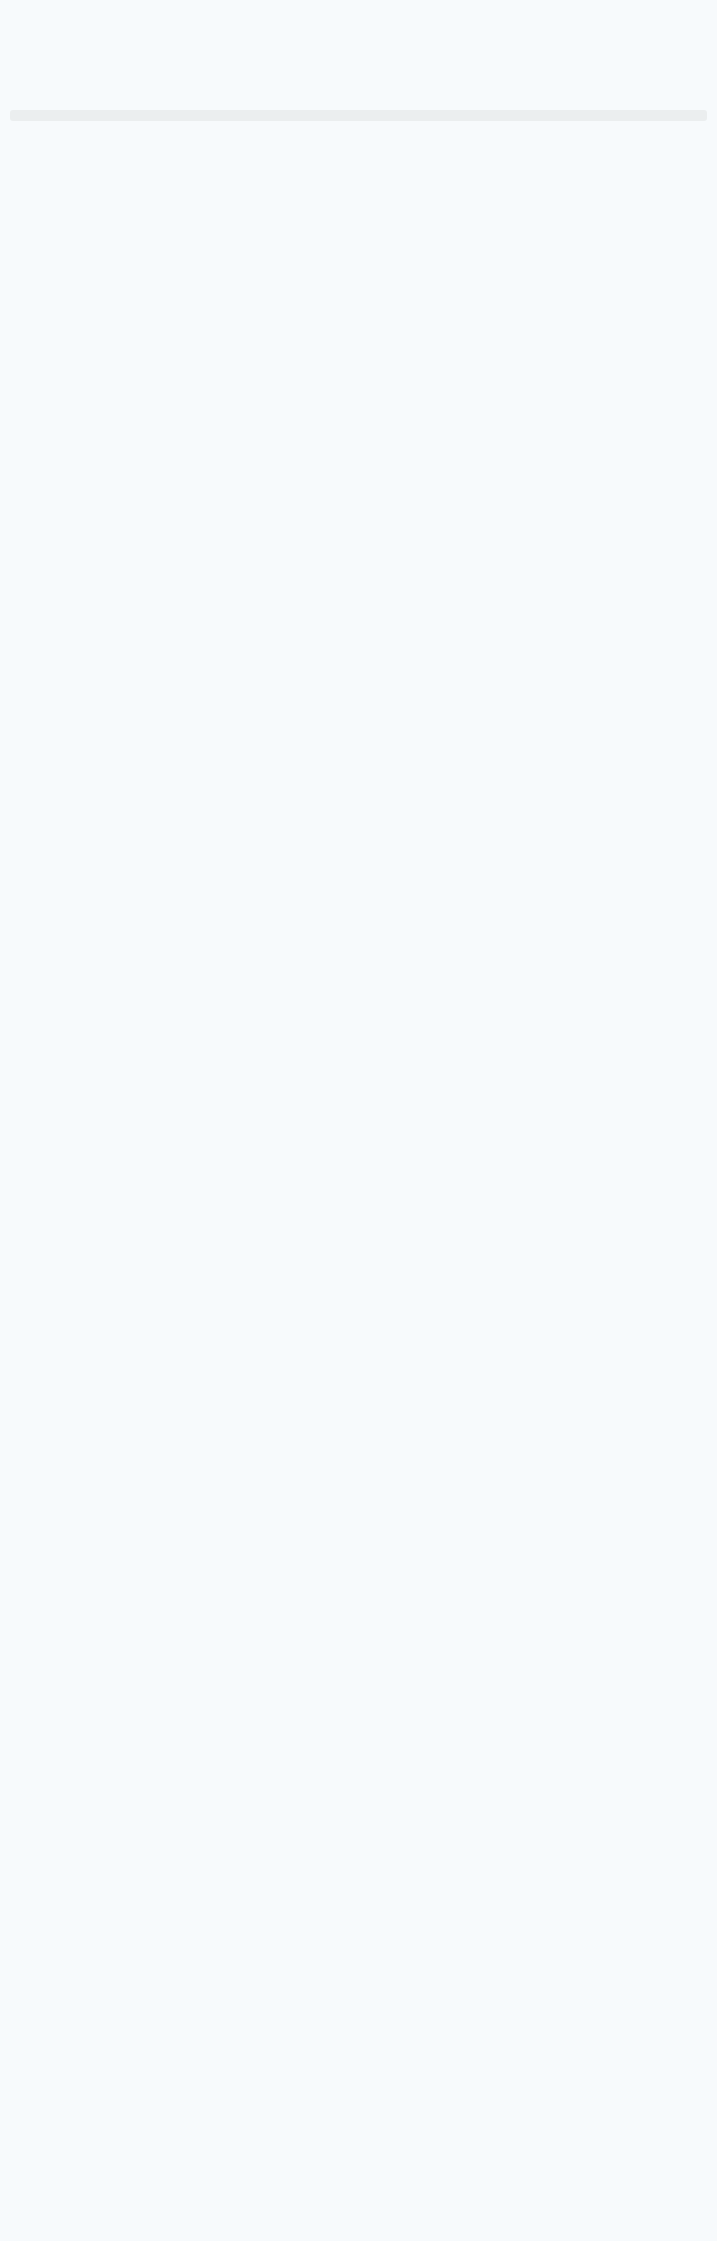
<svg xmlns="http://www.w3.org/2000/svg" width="717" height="2241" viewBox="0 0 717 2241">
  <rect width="100%" height="100%" fill="#f7fafc"/>
  <rect x="10" y="110" width="697" height="11" rx="3" fill="#ebeeef"/>
</svg>
